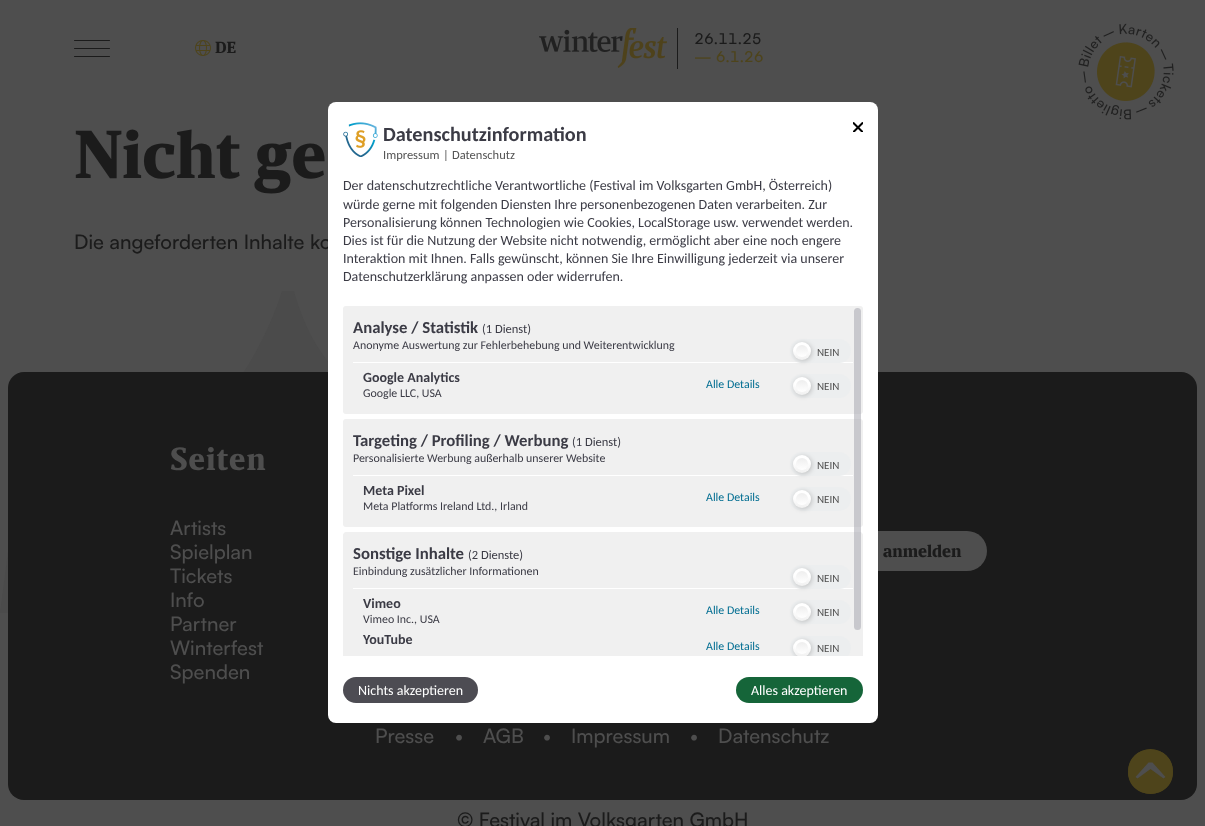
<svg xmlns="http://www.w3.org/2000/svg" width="1205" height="826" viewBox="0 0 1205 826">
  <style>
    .t1 { font: 900 16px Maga; fill: #1b1b1b; }
    .t2 { font: 500 15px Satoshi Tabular; fill: #1b1b1b; }
    .t3 { font: 500 15px Satoshi Tabular; fill: #4e441b; }
    .t4 { font: 900 67.5px Maga; fill: #1b1b1b; }
    .t5 { font: 500 20px Satoshi; fill: #1b1b1b; }
    .t6 { font: 900 32px Maga; letter-spacing: 1px; fill: #4e4e4e; }
    .t7 { font: 500 20px Satoshi; fill: #4e4e4e; }
    .t8 { font: 900 17.5px Maga; fill: #1b1b1b; }
    .t9 { font: bold 20.25px Carlito; fill: #3b3b45; }
    .t10 { font: 12.5px Carlito; fill: #555; }
    .t11 { font: 14px Carlito; fill: #3b3b45; }
    .t12 { font: bold 16.75px Carlito; fill: #3b3b45; }
    .t13 { font: 12.5px Carlito; fill: #3b3b45; }
    .t14 { font: 11.9px Carlito; fill: #3b3b45; }
    .t15 { font: 11px Carlito; fill: #4e4e4e; }
    .t16 { font: bold 14px Carlito; fill: #3b3b45; }
    .t17 { font: 11.9px Carlito; fill: #006d91; }
    .t18 { font: 14px Carlito; fill: #fff; }
  </style>
  <defs>
    <clipPath id="clip1"><rect x="853" y="122" width="10" height="10"/></clipPath>
    <linearGradient id="g1" gradientUnits="userSpaceOnUse" x1="802" y1="342" x2="802" y2="360"><stop offset="0.4" stop-color="#fff"/><stop offset="1" stop-color="#f0f0f0"/></linearGradient>
    <linearGradient id="g2" gradientUnits="userSpaceOnUse" x1="802" y1="345" x2="802" y2="357"><stop offset="0" stop-color="#eee"/><stop offset="1" stop-color="#fff"/></linearGradient>
    <linearGradient id="g3" gradientUnits="userSpaceOnUse" x1="802" y1="377" x2="802" y2="395"><stop offset="0.4" stop-color="#fff"/><stop offset="1" stop-color="#f0f0f0"/></linearGradient>
    <linearGradient id="g4" gradientUnits="userSpaceOnUse" x1="802" y1="380" x2="802" y2="392"><stop offset="0" stop-color="#eee"/><stop offset="1" stop-color="#fff"/></linearGradient>
    <linearGradient id="g5" gradientUnits="userSpaceOnUse" x1="802" y1="455" x2="802" y2="473"><stop offset="0.4" stop-color="#fff"/><stop offset="1" stop-color="#f0f0f0"/></linearGradient>
    <linearGradient id="g6" gradientUnits="userSpaceOnUse" x1="802" y1="458" x2="802" y2="470"><stop offset="0" stop-color="#eee"/><stop offset="1" stop-color="#fff"/></linearGradient>
    <linearGradient id="g7" gradientUnits="userSpaceOnUse" x1="802" y1="490" x2="802" y2="508"><stop offset="0.4" stop-color="#fff"/><stop offset="1" stop-color="#f0f0f0"/></linearGradient>
    <linearGradient id="g8" gradientUnits="userSpaceOnUse" x1="802" y1="493" x2="802" y2="505"><stop offset="0" stop-color="#eee"/><stop offset="1" stop-color="#fff"/></linearGradient>
    <linearGradient id="g9" gradientUnits="userSpaceOnUse" x1="802" y1="568" x2="802" y2="586"><stop offset="0.4" stop-color="#fff"/><stop offset="1" stop-color="#f0f0f0"/></linearGradient>
    <linearGradient id="g10" gradientUnits="userSpaceOnUse" x1="802" y1="571" x2="802" y2="583"><stop offset="0" stop-color="#eee"/><stop offset="1" stop-color="#fff"/></linearGradient>
    <linearGradient id="g11" gradientUnits="userSpaceOnUse" x1="802" y1="603" x2="802" y2="621"><stop offset="0.4" stop-color="#fff"/><stop offset="1" stop-color="#f0f0f0"/></linearGradient>
    <linearGradient id="g12" gradientUnits="userSpaceOnUse" x1="802" y1="606" x2="802" y2="618"><stop offset="0" stop-color="#eee"/><stop offset="1" stop-color="#fff"/></linearGradient>
    <clipPath id="clip2"><rect x="343" y="306" width="520" height="350"/></clipPath>
    <clipPath id="clip3"><rect x="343" y="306" width="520" height="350"/></clipPath>
    <linearGradient id="g13" gradientUnits="userSpaceOnUse" x1="802" y1="639" x2="802" y2="657"><stop offset="0.4" stop-color="#fff"/><stop offset="1" stop-color="#f0f0f0"/></linearGradient>
    <linearGradient id="g14" gradientUnits="userSpaceOnUse" x1="802" y1="642" x2="802" y2="654"><stop offset="0" stop-color="#eee"/><stop offset="1" stop-color="#fff"/></linearGradient>
  </defs>
  <rect width="100%" height="100%" fill="#4e4e4e"/>
  <rect x="74" y="48" width="36" height="1" rx="0.5" fill="#1b1b1b"/>
  <rect x="74" y="40" width="36" height="1" rx="0.5" fill="#1b1b1b"/>
  <rect x="74" y="56" width="36" height="1" rx="0.5" fill="#1b1b1b"/>
  <image x="195" y="40" width="16" height="16" href="images/1.png"/>
  <text x="215" y="53" class="t1">DE</text>
  <image x="539" y="28" width="128" height="40" href="images/2.png"/>
  <rect x="677" y="28" width="1" height="41" fill="#1b1b1b"/>
  <text x="694" y="44" class="t2">26.11.25</text>
  <text x="694" y="62" class="t3">— 6.1.26</text>
  <image x="1078" y="23" width="96" height="97" href="images/3.png"/>
  <text x="74" y="178" class="t4">Nicht ge</text>
  <text x="74" y="249" class="t5">Die angeforderten Inhalte ko</text>
  <path d="M843 613L835 539L822 429C722 427 610 400 560 305L553 291H541C541 290 510 389 418 401C372 406 341 381 321 352C302 324 294 291 294 291H282C282 290 228 494 13 513L0 613Z" fill="#4b4b4b"/>
  <rect x="8" y="372" width="1189" height="428" rx="16" fill="#1b1b1b"/>
  <circle cx="1150.5" cy="771.5" r="22.5" fill="#4e441b"/>
  <path d="M1173 772C1173 742 1128 742 1128 772C1128 801 1173 801 1173 772" fill="#4e441b"/>
  <path d="M1152.5 762.5L1165.5 777L1163.5 778.5L1150.5 769L1137.5 778.5L1135.5 777L1148.5 762.5Z" fill="#4e4e4e"/>
  <text x="170" y="470" class="t6">Seiten</text>
  <text x="170" y="535" class="t7">Artists</text>
  <text x="170" y="559" class="t7">Spielplan</text>
  <text x="170" y="583" class="t7">Tickets</text>
  <text x="170" y="607" class="t7">Info</text>
  <text x="170" y="631" class="t7">Partner</text>
  <text x="170" y="655" class="t7">Winterfest</text>
  <text x="170" y="679" class="t7">Spenden</text>
  <rect x="702" y="531" width="285" height="40" rx="20" fill="#4e4e4e"/>
  <text x="883" y="557" class="t8">anmelden</text>
  <text x="375" y="743" class="t7">Presse</text>
  <text x="455" y="743" class="t7">•</text>
  <text x="483" y="743" class="t7">AGB</text>
  <text x="543" y="743" class="t7">•</text>
  <text x="571" y="743" class="t7">Impressum</text>
  <text x="690" y="743" class="t7">•</text>
  <text x="718" y="743" class="t7">Datenschutz</text>
  <rect x="328" y="102" width="550" height="621" rx="8" fill="#fff"/>
  <image x="343" y="122" width="35" height="35" href="images/4.png"/>
  <text x="383" y="141" class="t9">Datenschutzinformation</text>
  <g clip-path="url(#clip1)">
    <path d="M853 122.5L863 132.5M853 132.5L863 122.5" fill="none" stroke="#000" stroke-width="2"/>
  </g>
  <text x="383" y="159" class="t10">Impressum</text>
  <text x="443" y="159" class="t10">|</text>
  <text x="452" y="159" class="t10">Datenschutz</text>
  <text x="343" y="190" class="t11">Der datenschutzrechtliche Verantwortliche (Festival im Volksgarten GmbH, Österreich)</text>
  <text x="343" y="209" class="t11">würde gerne mit folgenden Diensten Ihre personenbezogenen Daten verarbeiten. Zur</text>
  <text x="343" y="227" class="t11">Personalisierung können Technologien wie Cookies, LocalStorage usw. verwendet werden.</text>
  <text x="343" y="245" class="t11">Dies ist für die Nutzung der Website nicht notwendig, ermöglicht aber eine noch engere</text>
  <text x="343" y="263" class="t11">Interaktion mit Ihnen. Falls gewünscht, können Sie Ihre Einwilligung jederzeit via unserer</text>
  <text x="343" y="281" class="t11">Datenschutzerklärung anpassen oder widerrufen.</text>
  <rect x="343" y="306" width="520" height="108" rx="3" fill="#f0f0f0"/>
  <text x="353" y="333" class="t12">Analyse / Statistik</text>
  <text x="482" y="333" class="t13">(1 Dienst)</text>
  <text x="353" y="349" class="t14">Anonyme Auswertung zur Fehlerbehebung und Weiterentwicklung</text>
  <rect x="353" y="362" width="500" height="1" fill="#fff"/>
  <rect x="790" y="339" width="61" height="24" rx="12" fill="#eceeef"/>
  <rect x="794" y="343" width="18" height="18" rx="9" fill="#00000033" filter="blur(2.5px)"/>
  <circle cx="802" cy="351" r="9" fill="url(#g1)"/>
  <circle cx="802" cy="351" r="6" fill="url(#g2)"/>
  <text x="817" y="356" class="t15">NEIN</text>
  <text x="363" y="382" class="t16">Google Analytics</text>
  <text x="363" y="397" class="t14">Google LLC, USA</text>
  <text x="706" y="388" class="t17">Alle Details</text>
  <rect x="790" y="374" width="61" height="24" rx="12" fill="#eceeef"/>
  <rect x="794" y="378" width="18" height="18" rx="9" fill="#00000033" filter="blur(2.5px)"/>
  <circle cx="802" cy="386" r="9" fill="url(#g3)"/>
  <circle cx="802" cy="386" r="6" fill="url(#g4)"/>
  <text x="817" y="390" class="t15">NEIN</text>
  <rect x="343" y="419" width="520" height="108" rx="3" fill="#f0f0f0"/>
  <text x="353" y="446" class="t12">Targeting / Profiling / Werbung</text>
  <text x="572" y="446" class="t13">(1 Dienst)</text>
  <text x="353" y="462" class="t14">Personalisierte Werbung außerhalb unserer Website</text>
  <rect x="353" y="475" width="500" height="1" fill="#fff"/>
  <rect x="790" y="452" width="61" height="24" rx="12" fill="#eceeef"/>
  <rect x="794" y="456" width="18" height="18" rx="9" fill="#00000033" filter="blur(2.5px)"/>
  <circle cx="802" cy="464" r="9" fill="url(#g5)"/>
  <circle cx="802" cy="464" r="6" fill="url(#g6)"/>
  <text x="817" y="469" class="t15">NEIN</text>
  <text x="363" y="495" class="t16">Meta Pixel</text>
  <text x="363" y="510" class="t14">Meta Platforms Ireland Ltd., Irland</text>
  <text x="706" y="501" class="t17">Alle Details</text>
  <rect x="790" y="487" width="61" height="24" rx="12" fill="#eceeef"/>
  <rect x="794" y="491" width="18" height="18" rx="9" fill="#00000033" filter="blur(2.5px)"/>
  <circle cx="802" cy="499" r="9" fill="url(#g7)"/>
  <circle cx="802" cy="499" r="6" fill="url(#g8)"/>
  <text x="817" y="503" class="t15">NEIN</text>
  <path d="M346 532H860C861.5 532 863 533.5 863 535V656H343V535C343 533.5 344.5 532 346 532Z" fill="#f0f0f0"/>
  <text x="353" y="559" class="t12">Sonstige Inhalte</text>
  <text x="468" y="559" class="t13">(2 Dienste)</text>
  <text x="353" y="575" class="t14">Einbindung zusätzlicher Informationen</text>
  <rect x="353" y="588" width="500" height="1" fill="#fff"/>
  <rect x="790" y="565" width="61" height="24" rx="12" fill="#eceeef"/>
  <rect x="794" y="569" width="18" height="18" rx="9" fill="#00000033" filter="blur(2.5px)"/>
  <circle cx="802" cy="577" r="9" fill="url(#g9)"/>
  <circle cx="802" cy="577" r="6" fill="url(#g10)"/>
  <text x="817" y="582" class="t15">NEIN</text>
  <text x="363" y="608" class="t16">Vimeo</text>
  <text x="363" y="623" class="t14">Vimeo Inc., USA</text>
  <text x="706" y="614" class="t17">Alle Details</text>
  <rect x="790" y="600" width="61" height="24" rx="12" fill="#eceeef"/>
  <rect x="794" y="604" width="18" height="18" rx="9" fill="#00000033" filter="blur(2.5px)"/>
  <circle cx="802" cy="612" r="9" fill="url(#g11)"/>
  <circle cx="802" cy="612" r="6" fill="url(#g12)"/>
  <text x="817" y="616" class="t15">NEIN</text>
  <text x="363" y="644" class="t16">YouTube</text>
  <text x="706" y="650" class="t17">Alle Details</text>
  <g clip-path="url(#clip2)">
    <rect x="790" y="636" width="61" height="24" rx="12" fill="#eceeef"/>
  </g>
  <g clip-path="url(#clip3)">
    <rect x="794" y="640" width="18" height="18" rx="9" fill="#00000033" filter="blur(2.5px)"/>
  </g>
  <g clip-path="url(#clip2)">
    <circle cx="802" cy="648" r="9" fill="url(#g13)"/>
  </g>
  <circle cx="802" cy="648" r="6" fill="url(#g14)"/>
  <text x="817" y="652" class="t15">NEIN</text>
  <rect x="854" y="308" width="7" height="322" rx="3.5" fill="#9f9fa980"/>
  <rect x="343" y="677" width="135" height="26" rx="13" fill="#4d4c53"/>
  <text x="358" y="695" class="t18">Nichts akzeptieren</text>
  <rect x="736" y="677" width="127" height="26" rx="13" fill="#156539"/>
  <text x="751" y="695" class="t18">Alles akzeptieren</text>
  <text x="457" y="827" class="t5">© Festival im Volksgarten GmbH</text>
</svg>
